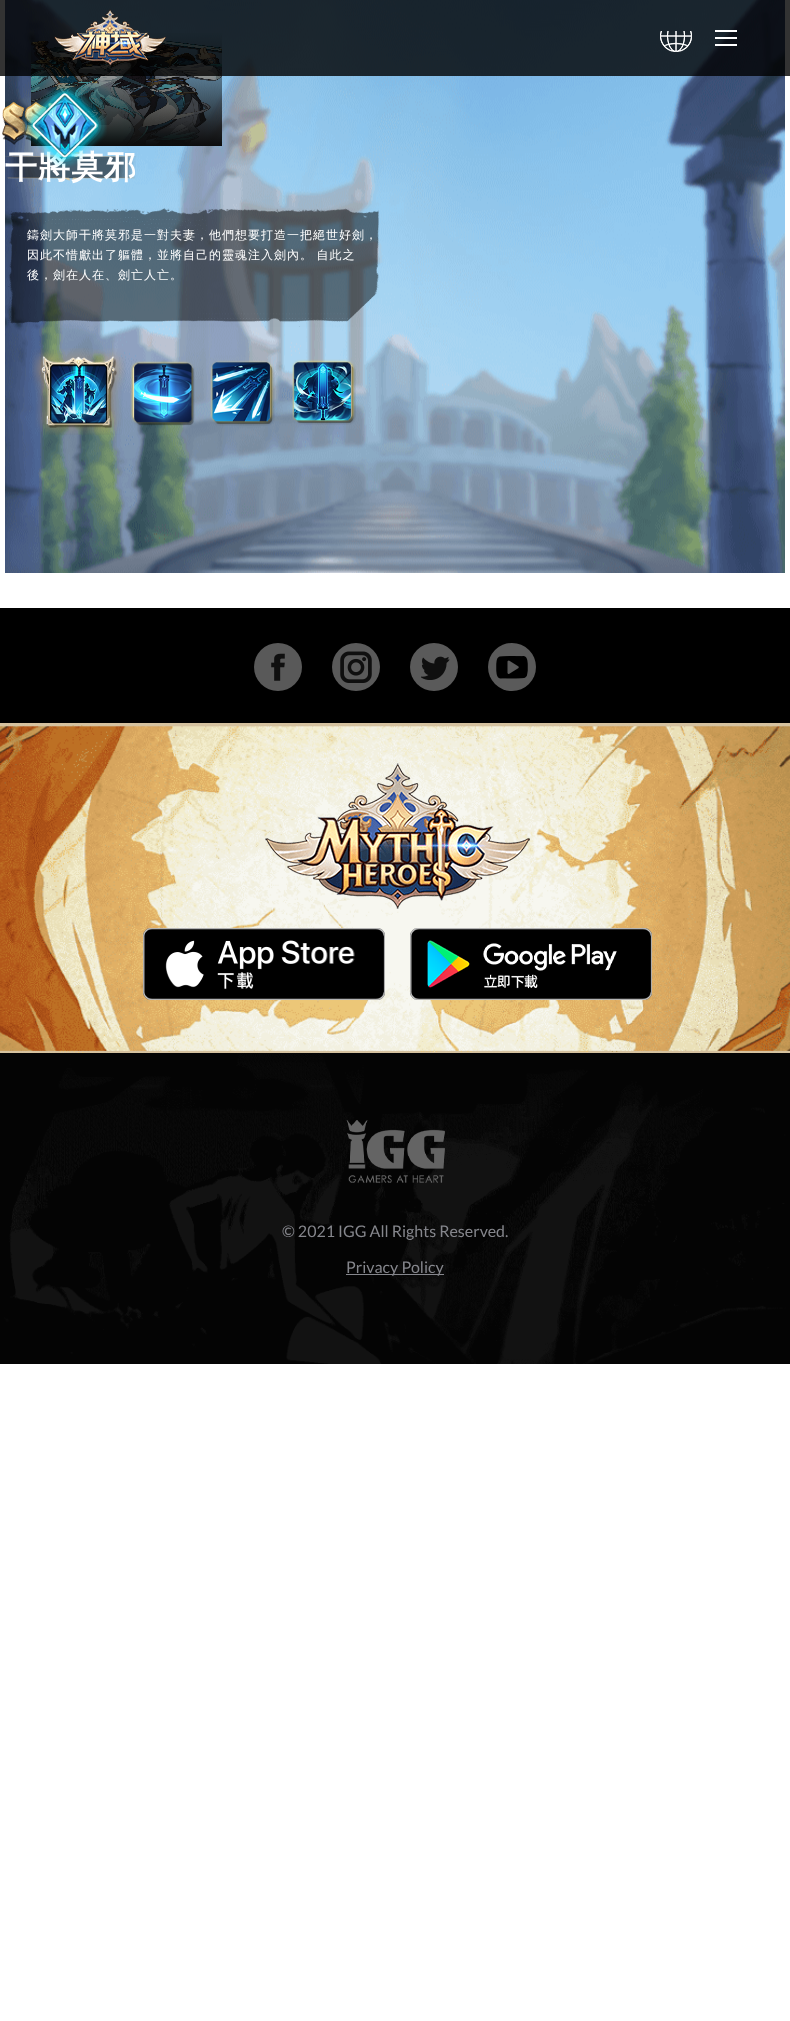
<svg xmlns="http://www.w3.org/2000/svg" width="790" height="2021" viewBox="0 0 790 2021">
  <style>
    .t1 { font: bold 32px WenQuanYi Zen Hei; letter-spacing: 1px; fill: #fff; }
    .t2 { font: 500 12px WenQuanYi Zen Hei; letter-spacing: 1px; fill: #fff; }
    .t3 { font: 16px Lato; fill: #85868c; }
  </style>
  <defs>
    <linearGradient id="g1" gradientUnits="userSpaceOnUse" x1="127" y1="31" x2="127" y2="146"><stop offset="0" stop-color="#0c0c0c" stop-opacity="0"/><stop offset="1" stop-color="#0c0c0c"/></linearGradient>
  </defs>
  <rect width="100%" height="100%" fill="#fff"/>
  <image x="5" y="0" width="780" height="573" href="images/4.png"/>
  <image x="31" y="32" width="191" height="113" href="images/5.png"/>
  <rect x="31" y="33" width="191" height="113" fill="url(#g1)"/>
  <rect x="0" y="0" width="790" height="76" fill="#00000080"/>
  <rect x="0" y="0" width="790" height="76" fill="#00000099"/>
  <image x="54" y="9" width="112" height="57" href="images/1.png"/>
  <image x="660" y="31" width="32" height="21" href="images/2.png"/>
  <rect x="715" y="30" width="22" height="2" fill="#fff"/>
  <rect x="715" y="37" width="22" height="2" fill="#fff"/>
  <rect x="715" y="44" width="22" height="2" fill="#fff"/>
  <image x="2" y="102" width="52" height="43" href="images/6.png"/>
  <image x="5" y="151" width="132" height="30" href="images/7.png"/>
  <text x="5" y="178" class="t1">干將莫邪</text>
  <image x="22" y="83" width="85" height="85" href="images/3.png"/>
  <image x="8" y="208" width="371" height="119" href="images/8.png"/>
  <text x="27" y="239" class="t2">鑄劍大師干將莫邪是一對夫妻，他們想要打造一把絕世好劍，</text>
  <text x="27" y="259" word-spacing="-1" class="t2">因此不惜獻出了軀體，並將自己的靈魂注入劍內。 自此之</text>
  <text x="27" y="279" class="t2">後，劍在人在、劍亡人亡。</text>
  <image x="32" y="348" width="94" height="87" href="images/9.png"/>
  <image x="42" y="357" width="75" height="71" href="images/10.png"/>
  <image x="130" y="361" width="65" height="65" href="images/11.png"/>
  <image x="210" y="360" width="65" height="66" href="images/12.png"/>
  <image x="292" y="359" width="64" height="66" href="images/13.png"/>
  <image x="134" y="363" width="60" height="62" href="images/14.png"/>
  <image x="212" y="362" width="60" height="62" href="images/15.png"/>
  <image x="293" y="362" width="60" height="61" href="images/16.png"/>
  <rect x="0" y="608" width="790" height="115" fill="#000"/>
  <circle cx="278" cy="667" r="24" fill="#595959"/>
  <image x="271" y="653" width="14" height="28" href="images/17.png"/>
  <circle cx="356" cy="667" r="24" fill="#5a5a5a"/>
  <image x="340" y="651" width="32" height="32" href="images/18.png"/>
  <circle cx="434" cy="667" r="24" fill="#5a5a5a"/>
  <image x="421" y="656" width="29" height="24" href="images/19.png"/>
  <circle cx="512" cy="667" r="24" fill="#5a5a5a"/>
  <image x="496" y="656" width="32" height="23" href="images/20.png"/>
  <image x="0" y="723" width="790" height="330" href="images/21.png"/>
  <image x="265" y="763" width="265" height="146" href="images/22.png"/>
  <image x="143" y="928" width="242" height="72" href="images/23.png"/>
  <image x="410" y="928" width="242" height="72" href="images/24.png"/>
  <image x="0" y="1053" width="790" height="311" href="images/25.png"/>
  <image x="346" y="1120" width="99" height="63" href="images/26.png"/>
  <text x="282" y="1237" class="t3">© 2021 IGG All Rights Reserved.</text>
  <rect x="346" y="1274" width="98" height="1" fill="#85868c"/>
  <text x="346" y="1273" class="t3">Privacy Policy</text>
</svg>
